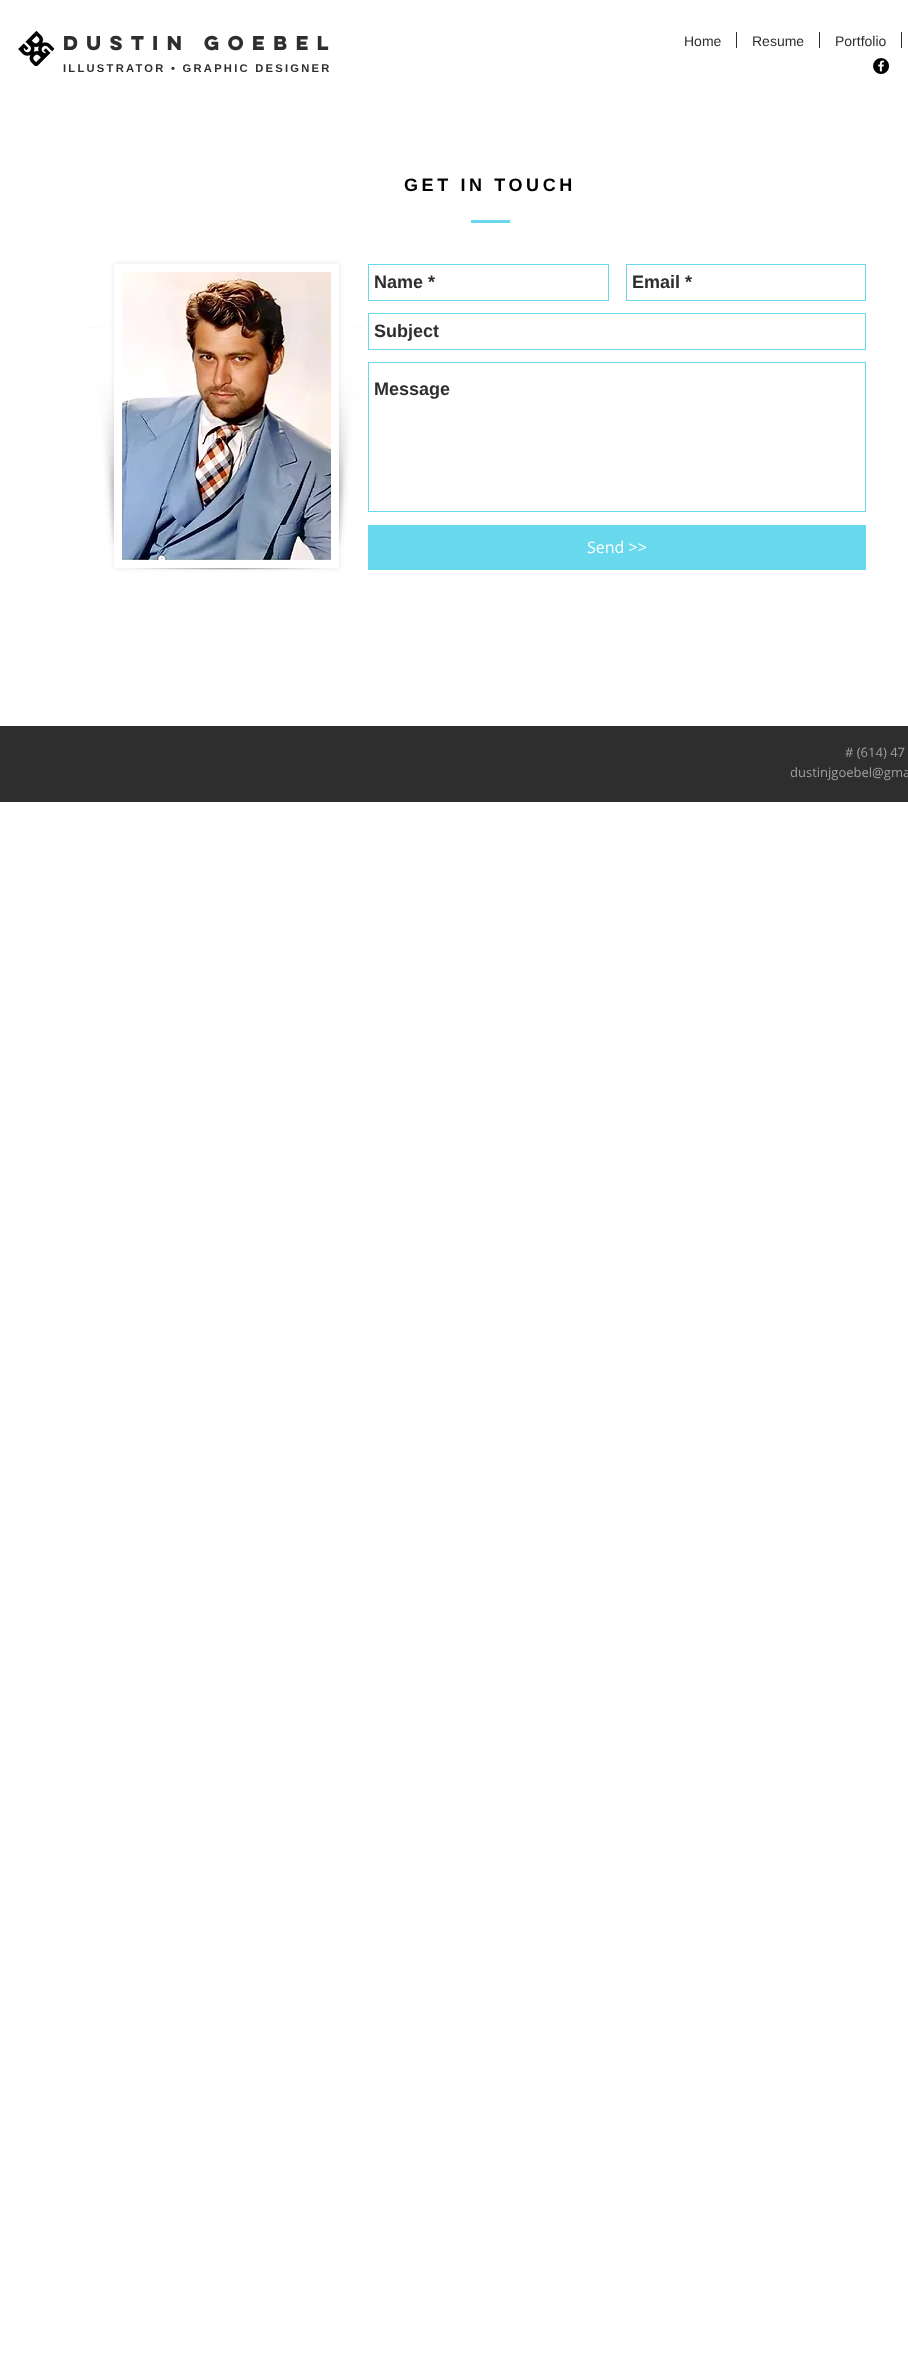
<svg xmlns="http://www.w3.org/2000/svg" width="908" height="2378" viewBox="0 0 908 2378">
  <style>
    .t1 { font: bold 18px 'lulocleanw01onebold'; letter-spacing: 4.5px; fill: #2f2e2e; }
    .t2 { font: bold 11.2px Liberation Sans; letter-spacing: 2.25px; fill: #2f2e2e; }
    .t3 { font: 14px Liberation Sans; fill: #2f2e2e; }
    .t4 { font: bold 18px Liberation Sans; letter-spacing: 3.6px; fill: #000; }
    .t5 { font: bold 18px Liberation Sans; fill: #2f2e2e; }
    .t6 { font: 16px Open Sans; fill: #fff; }
    .t7 { font: 13px Open Sans; fill: #a0a09f; }
  </style>
  <defs>
    <clipPath id="clip1"><path d="M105 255H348V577H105ZM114 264H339V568H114Z" clip-rule="evenodd"/></clipPath>
  </defs>
  <rect width="100%" height="100%" fill="#fff"/>
  <image x="18" y="31" width="36" height="35" href="images/1.png"/>
  <text x="63" y="50" class="t1">DUSTIN GOEBEL</text>
  <text x="63" y="72" class="t2">ILLUSTRATOR • GRAPHIC DESIGNER</text>
  <text x="684" y="46" class="t3">Home</text>
  <rect x="736" y="32" width="1" height="16" fill="#2f2e2e"/>
  <text x="752" y="46" class="t3">Resume</text>
  <rect x="819" y="32" width="1" height="16" fill="#2f2e2e"/>
  <text x="835" y="46" class="t3">Portfolio</text>
  <rect x="901" y="32" width="1" height="16" fill="#2f2e2e"/>
  <image x="873" y="58" width="16" height="16" href="images/2.png"/>
  <text x="404" y="191" class="t4">GET IN TOUCH</text>
  <rect x="471" y="220" width="39" height="3" fill="#68d9ed"/>
  <g clip-path="url(#clip1)">
    <rect x="114" y="264" width="225" height="304" fill="#0000001a" filter="blur(2.5px)"/>
  </g>
  <image x="90" y="326" width="24" height="220" href="images/3.png"/>
  <image x="122" y="272" width="209" height="288" href="images/4.png"/>
  <image x="133" y="568" width="188" height="2" href="images/5.png"/>
  <image x="339" y="326" width="24" height="220" href="images/6.png"/>
  <rect x="368.5" y="264.5" width="240" height="36" fill="none" stroke="#68d9ed"/>
  <text x="374" y="288" class="t5">Name *</text>
  <rect x="626.5" y="264.5" width="239" height="36" fill="none" stroke="#68d9ed"/>
  <text x="632" y="288" class="t5">Email *</text>
  <rect x="368.5" y="313.5" width="497" height="36" fill="none" stroke="#68d9ed"/>
  <text x="374" y="337" class="t5">Subject</text>
  <rect x="368.5" y="362.5" width="497" height="149" fill="none" stroke="#68d9ed"/>
  <text x="374" y="395" class="t5">Message</text>
  <rect x="368" y="525" width="498" height="45" fill="#68d9ed"/>
  <text x="587" y="553" class="t6">Send &gt;&gt;</text>
  <rect x="0" y="726" width="908" height="76" fill="#2f2e2e"/>
  <text x="845" y="757" class="t7"># (614) 47</text>
  <text x="790" y="777" class="t7">dustinjgoebel@gma</text>
</svg>
